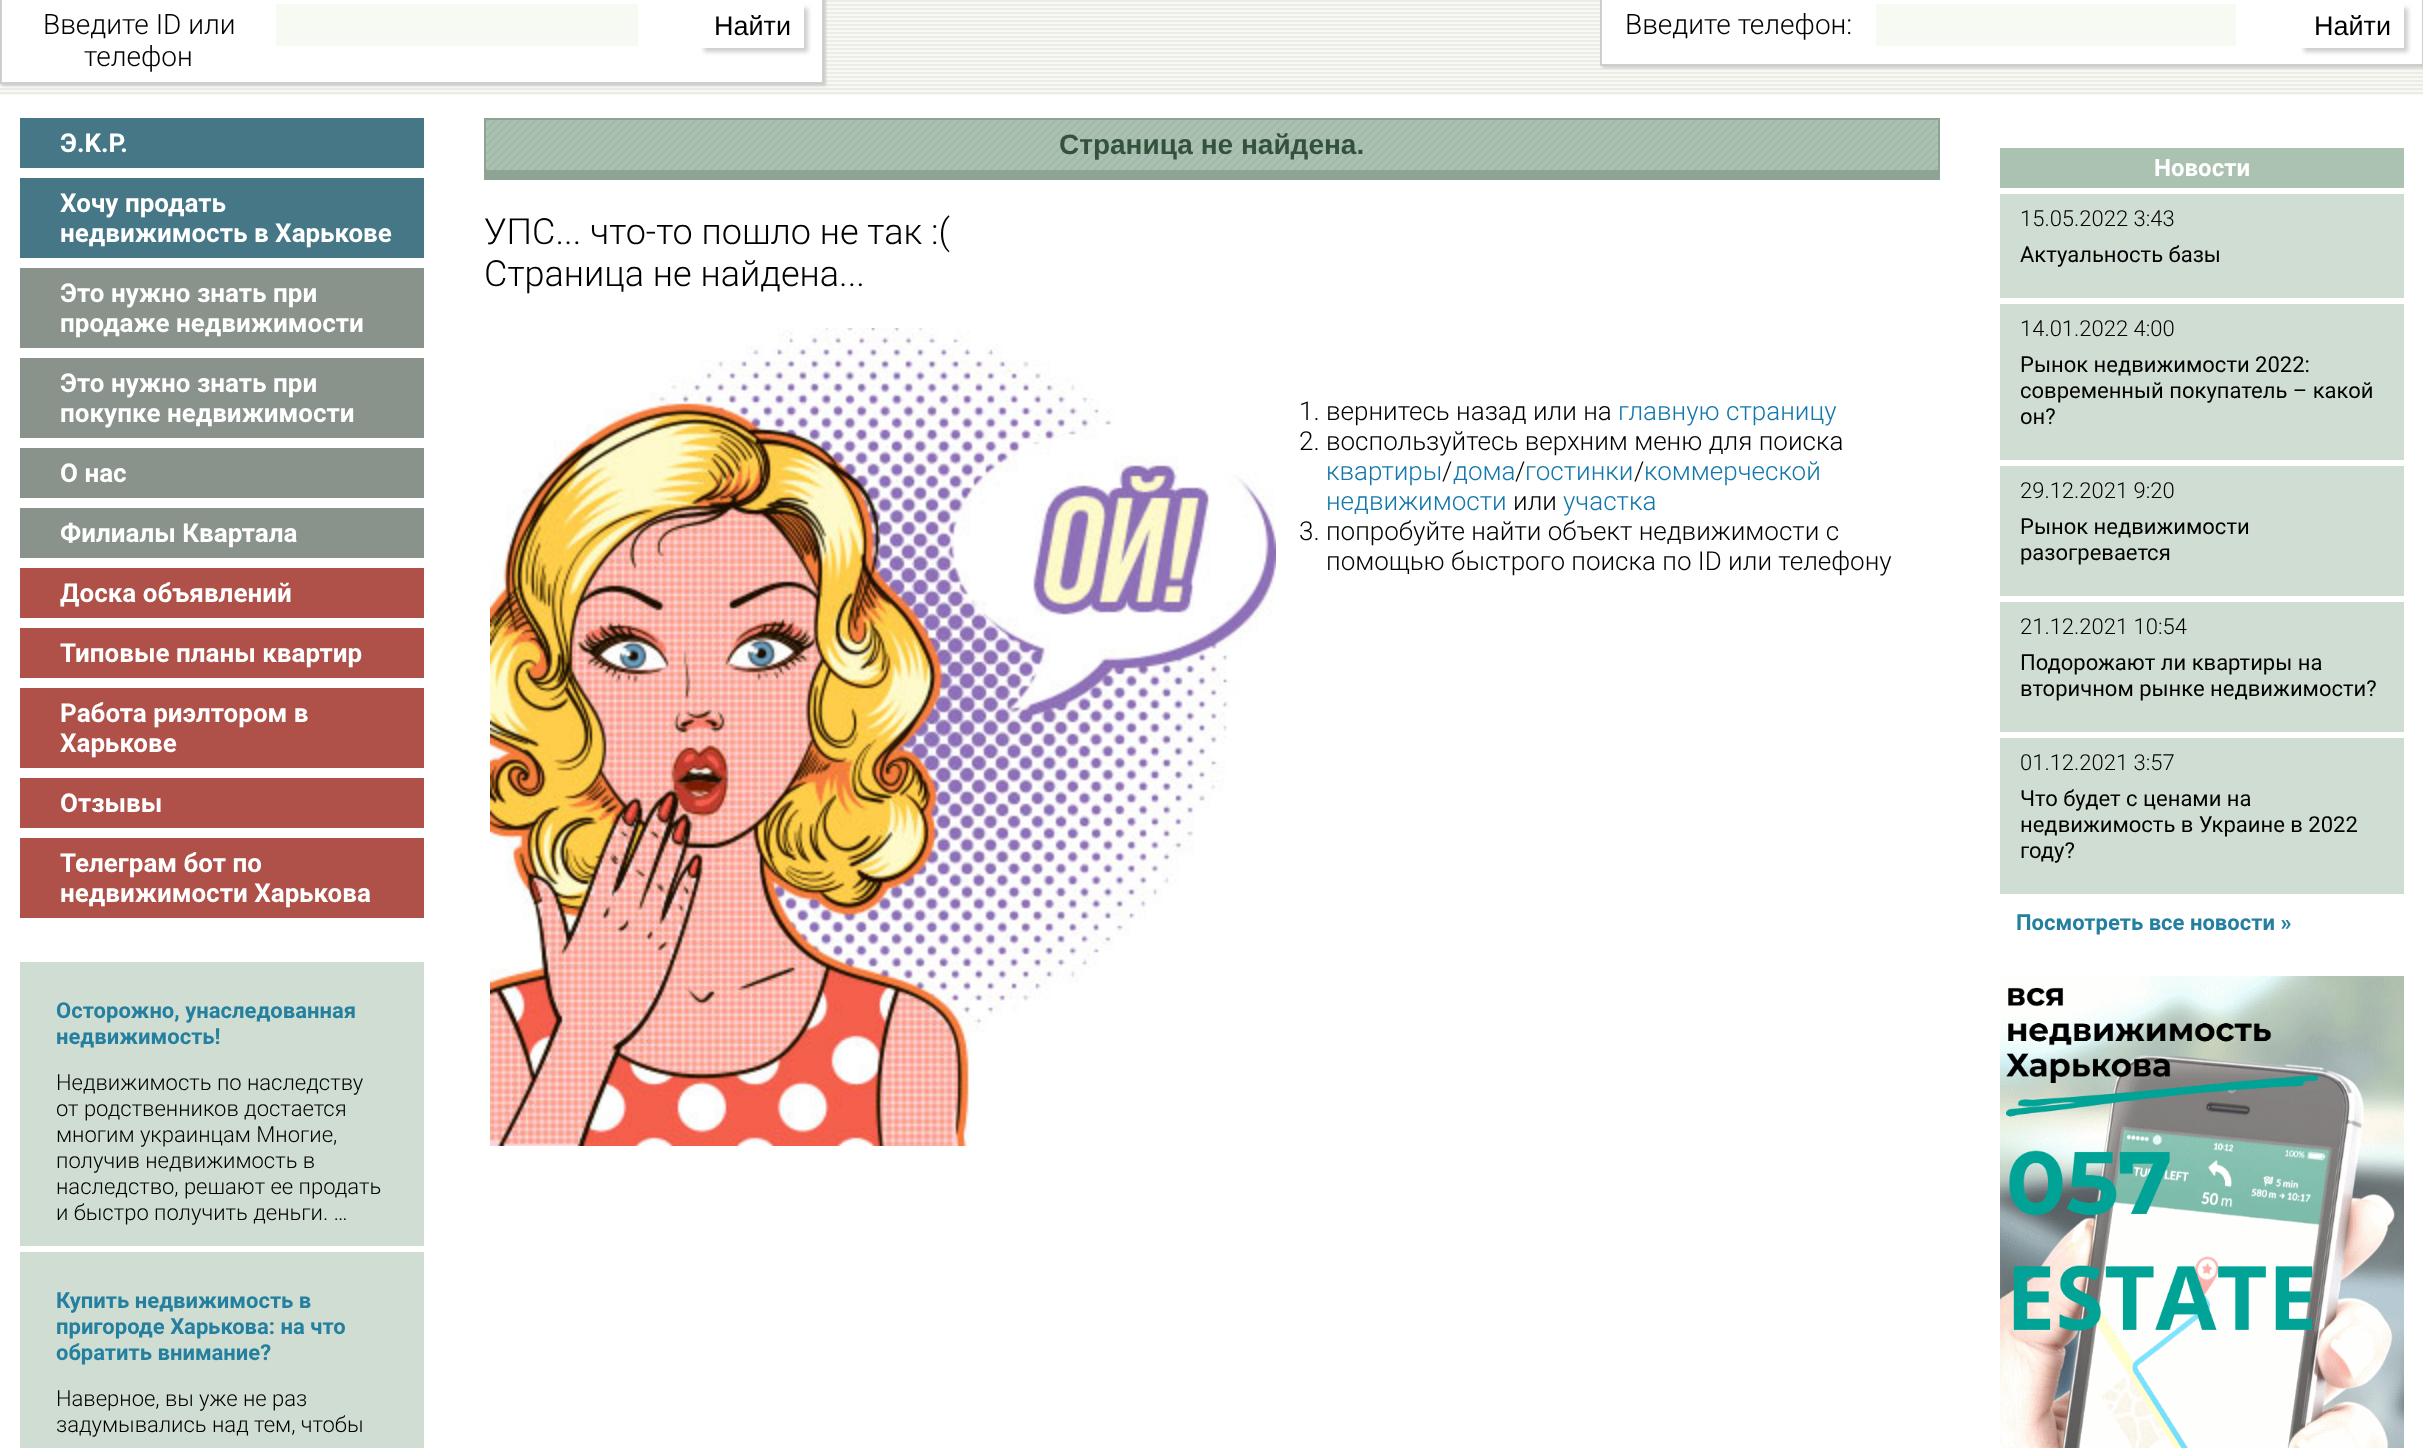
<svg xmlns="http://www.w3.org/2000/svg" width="2423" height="1448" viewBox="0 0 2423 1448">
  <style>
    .t1 { font: 300 28px Roboto; fill: #000; }
    .t2 { font: 27px Liberation Sans; fill: #000; }
    .t3 { font: bold 26px Roboto; fill: #fff; }
    .t4 { font: bold 22px Roboto; fill: #24809e; }
    .t5 { font: 300 22px Roboto; fill: #000; }
    .t6 { font: bold 28px Liberation Sans; fill: #34523b; }
    .t7 { font: 300 36px Roboto; fill: #000; }
    .t8 { font: 300 26px Roboto; fill: #000; }
    .t9 { font: 300 26px Roboto; fill: #1377ab; }
    .t10 { font: bold 24px Roboto; fill: #fff; }
    .t11 { font: 22px Roboto; fill: #000; }
  </style>
  <defs>
    <clipPath id="clip1"><path d="M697 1H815V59H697ZM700 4H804V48H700Z" clip-rule="evenodd"/></clipPath>
    <clipPath id="clip2"><path d="M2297 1H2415V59H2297ZM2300 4H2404V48H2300Z" clip-rule="evenodd"/></clipPath>
  </defs>
  <rect width="100%" height="100%" fill="#fff"/>
  <image x="0" y="0" width="2423" height="95" href="images/1.png"/>
  <rect x="2" y="-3" width="824" height="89" fill="#cecece" filter="blur(1px)"/>
  <rect x="1" y="-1" width="822" height="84" fill="#fff" stroke="#cecece" stroke-width="2"/>
  <text x="43" y="34" class="t1">Введите ID или</text>
  <text x="84" y="66" class="t1">телефон</text>
  <rect x="276" y="4" width="362" height="42" fill="#f7faf3"/>
  <g clip-path="url(#clip1)">
    <rect x="704" y="8" width="104" height="44" fill="#cecece" filter="blur(2px)"/>
  </g>
  <text x="714" y="35" class="t2">Найти</text>
  <rect x="1602" y="-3" width="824" height="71" fill="#cecece" filter="blur(1px)"/>
  <rect x="1601" y="-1" width="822" height="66" fill="#fff" stroke="#cecece" stroke-width="2"/>
  <text x="1625" y="34" class="t1">Введите телефон:</text>
  <rect x="1876" y="4" width="360" height="42" fill="#f7faf3"/>
  <g clip-path="url(#clip2)">
    <rect x="2304" y="8" width="104" height="44" fill="#cecece" filter="blur(2px)"/>
  </g>
  <text x="2314" y="35" class="t2">Найти</text>
  <rect x="20" y="118" width="404" height="50" fill="#457787"/>
  <text x="60" y="152" class="t3">Э.K.P.</text>
  <rect x="20" y="178" width="404" height="80" fill="#457787"/>
  <text x="60" y="212" class="t3">Хочу продать</text>
  <text x="60" y="242" class="t3">недвижимость в Харькове</text>
  <rect x="20" y="268" width="404" height="80" fill="#8a928c"/>
  <text x="60" y="302" class="t3">Это нужно знать при</text>
  <text x="60" y="332" class="t3">продаже недвижимости</text>
  <rect x="20" y="358" width="404" height="80" fill="#8a928c"/>
  <text x="60" y="392" class="t3">Это нужно знать при</text>
  <text x="60" y="422" class="t3">покупке недвижимости</text>
  <rect x="20" y="448" width="404" height="50" fill="#8a928c"/>
  <text x="60" y="482" class="t3">О нас</text>
  <rect x="20" y="508" width="404" height="50" fill="#8a928c"/>
  <text x="60" y="542" class="t3">Филиалы Квартала</text>
  <rect x="20" y="568" width="404" height="50" fill="#af5049"/>
  <text x="60" y="602" class="t3">Доска объявлений</text>
  <rect x="20" y="628" width="404" height="50" fill="#af5049"/>
  <text x="60" y="662" class="t3">Типовые планы квартир</text>
  <rect x="20" y="688" width="404" height="80" fill="#af5049"/>
  <text x="60" y="722" class="t3">Работа риэлтором в</text>
  <text x="60" y="752" class="t3">Харькове</text>
  <rect x="20" y="778" width="404" height="50" fill="#af5049"/>
  <text x="60" y="812" class="t3">Отзывы</text>
  <rect x="20" y="838" width="404" height="80" fill="#af5049"/>
  <text x="60" y="872" class="t3">Телеграм бот по</text>
  <text x="60" y="902" class="t3">недвижимости Харькова</text>
  <rect x="20" y="962" width="404" height="284" fill="#d0ddd3"/>
  <text x="56" y="1018" class="t4">Осторожно, унаследованная</text>
  <text x="56" y="1044" class="t4">недвижимость!</text>
  <text x="56" y="1090" class="t5">Недвижимость по наследству</text>
  <text x="56" y="1116" class="t5">от родственников достается</text>
  <text x="56" y="1142" class="t5">многим украинцам Многие,</text>
  <text x="56" y="1168" class="t5">получив недвижимость в</text>
  <text x="56" y="1194" class="t5">наследство, решают ее продать</text>
  <text x="56" y="1220" class="t5">и быстро получить деньги. …</text>
  <rect x="20" y="1252" width="404" height="196" fill="#d0ddd3"/>
  <text x="56" y="1308" class="t4">Купить недвижимость в</text>
  <text x="56" y="1334" class="t4">пригороде Харькова: на что</text>
  <text x="56" y="1360" class="t4">обратить внимание?</text>
  <text x="56" y="1406" class="t5">Наверное, вы уже не раз</text>
  <text x="56" y="1432" class="t5">задумывались над тем, чтобы</text>
  <image x="486" y="120" width="1452" height="50" href="images/2.png"/>
  <rect x="484" y="118" width="1456" height="2" fill="#8fa394"/>
  <rect x="1938" y="118" width="2" height="52" fill="#8fa394"/>
  <rect x="486" y="170" width="1454" height="10" fill="#8fa394"/>
  <rect x="484" y="118" width="2" height="62" fill="#8fa394"/>
  <text x="1059" y="154" class="t6">Cтраница не найдена.</text>
  <text x="484" y="244" class="t7">УПС... что-то пошло не так :(</text>
  <text x="484" y="286" class="t7">Страница не найдена...</text>
  <image x="490" y="328" width="786" height="818" href="images/3.png"/>
  <text x="1299" y="420" class="t8">1. вернитесь назад или на</text>
  <text x="1618" y="420" class="t9">главную страницу</text>
  <text x="1299" y="450" class="t8">2. воспользуйтесь верхним меню для поиска</text>
  <text x="1326" y="480" class="t9">квартиры</text>
  <text x="1442" y="480" class="t8">/</text>
  <text x="1453" y="480" class="t9">дома</text>
  <text x="1515" y="480" class="t8">/</text>
  <text x="1525" y="480" class="t9">гостинки</text>
  <text x="1634" y="480" class="t8">/</text>
  <text x="1644" y="480" class="t9">коммерческой</text>
  <text x="1326" y="510" class="t9">недвижимости</text>
  <text x="1513" y="510" class="t8">или</text>
  <text x="1563" y="510" class="t9">участка</text>
  <text x="1299" y="540" class="t8">3. попробуйте найти объект недвижимости с</text>
  <text x="1326" y="570" class="t8">помощью быстрого поиска по ID или телефону</text>
  <rect x="2000" y="148" width="404" height="40" fill="#acc2b1"/>
  <text x="2154" y="176" class="t10">Новости</text>
  <rect x="2000" y="194" width="404" height="104" fill="#d0ddd3"/>
  <text x="2020" y="226" class="t5">15.05.2022 3:43</text>
  <text x="2020" y="262" class="t11">Актуальность базы</text>
  <rect x="2000" y="304" width="404" height="156" fill="#d0ddd3"/>
  <text x="2020" y="336" class="t5">14.01.2022 4:00</text>
  <text x="2020" y="372" class="t11">Рынок недвижимости 2022:</text>
  <text x="2020" y="398" class="t11">современный покупатель – какой</text>
  <text x="2020" y="424" class="t11">он?</text>
  <rect x="2000" y="466" width="404" height="130" fill="#d0ddd3"/>
  <text x="2020" y="498" class="t5">29.12.2021 9:20</text>
  <text x="2020" y="534" class="t11">Рынок недвижимости</text>
  <text x="2020" y="560" class="t11">разогревается</text>
  <rect x="2000" y="602" width="404" height="130" fill="#d0ddd3"/>
  <text x="2020" y="634" class="t5">21.12.2021 10:54</text>
  <text x="2020" y="670" class="t11">Подорожают ли квартиры на</text>
  <text x="2020" y="696" class="t11">вторичном рынке недвижимости?</text>
  <rect x="2000" y="738" width="404" height="156" fill="#d0ddd3"/>
  <text x="2020" y="770" class="t5">01.12.2021 3:57</text>
  <text x="2020" y="806" class="t11">Что будет с ценами на</text>
  <text x="2020" y="832" class="t11">недвижимость в Украине в 2022</text>
  <text x="2020" y="858" class="t11">году?</text>
  <text x="2016" y="930" class="t4">Посмотреть все новости »</text>
  <image x="2000" y="976" width="404" height="472" href="images/4.png"/>
</svg>
